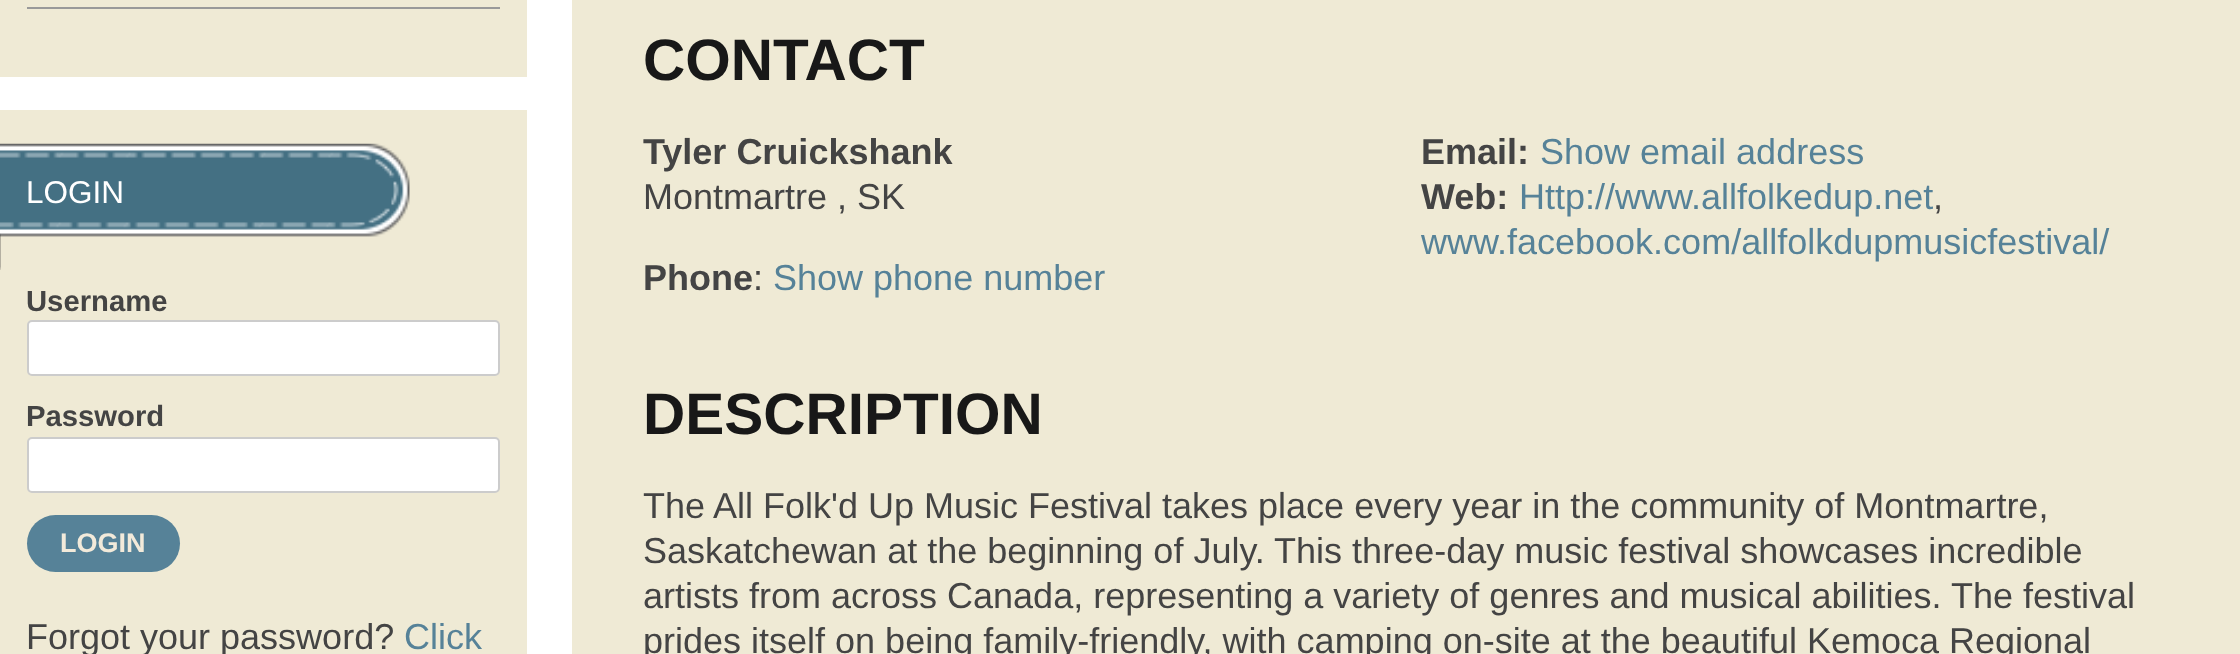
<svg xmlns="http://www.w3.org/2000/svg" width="2240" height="654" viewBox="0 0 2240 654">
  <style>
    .t1 { font: 31.5px Liberation Sans; fill: #fff; }
    .t2 { font: bold 29.25px Liberation Sans; fill: #444; }
    .t3 { font: bold 27px Liberation Sans; fill: #f2eada; }
    .t4 { font: 36px Liberation Sans; fill: #444; }
    .t5 { font: 36px Liberation Sans; fill: #568298; }
    .t6 { font: bold 58.5px Liberation Sans; fill: #181818; }
    .t7 { font: bold 36px Liberation Sans; fill: #444; }
  </style>
  <rect width="100%" height="100%" fill="#fff"/>
  <rect x="0" y="0" width="527" height="77" fill="#efead5"/>
  <rect x="27" y="7" width="473" height="2" fill="#999"/>
  <rect x="0" y="110" width="527" height="544" fill="#efead5"/>
  <image x="0" y="143" width="410" height="127" href="images/1.png"/>
  <text x="26" y="203" class="t1">LOGIN</text>
  <text x="26" y="311" class="t2">Username</text>
  <rect x="28" y="321" width="471" height="54" rx="4" fill="#fff" stroke="#ccc" stroke-width="2"/>
  <text x="26" y="426" class="t2">Password</text>
  <rect x="28" y="438" width="471" height="54" rx="4" fill="#fff" stroke="#ccc" stroke-width="2"/>
  <rect x="27" y="515" width="153" height="57" rx="28.5" fill="#568298"/>
  <text x="60" y="552" class="t3">LOGIN</text>
  <text x="26" y="649" class="t4">Forgot your password?</text>
  <text x="404" y="649" class="t5">Click</text>
  <rect x="572" y="0" width="1668" height="654" fill="#efead5"/>
  <text x="643" y="80" class="t6">CONTACT</text>
  <text x="643" y="164" class="t7">Tyler Cruickshank</text>
  <text x="643" y="209" class="t4">Montmartre , SK</text>
  <text x="643" y="290" class="t7">Phone</text>
  <text x="753" y="290" class="t4">:</text>
  <text x="773" y="290" class="t5">Show phone number</text>
  <text x="1421" y="164" class="t7">Email:</text>
  <text x="1540" y="164" class="t5">Show email address</text>
  <text x="1421" y="209" class="t7">Web:</text>
  <text x="1519" y="209" class="t5">Http://www.allfolkedup.net</text>
  <text x="1933" y="209" class="t4">,</text>
  <text x="1421" y="254" class="t5">www.facebook.com/allfolkdupmusicfestival/</text>
  <text x="643" y="434" class="t6">DESCRIPTION</text>
  <text x="643" y="518" class="t4">The All Folk'd Up Music Festival takes place every year in the community of Montmartre,</text>
  <text x="643" y="563" class="t4">Saskatchewan at the beginning of July. This three-day music festival showcases incredible</text>
  <text x="643" y="608" class="t4">artists from across Canada, representing a variety of genres and musical abilities. The festival</text>
  <text x="643" y="653" class="t4">prides itself on being family-friendly, with camping on-site at the beautiful Kemoca Regional</text>
</svg>
